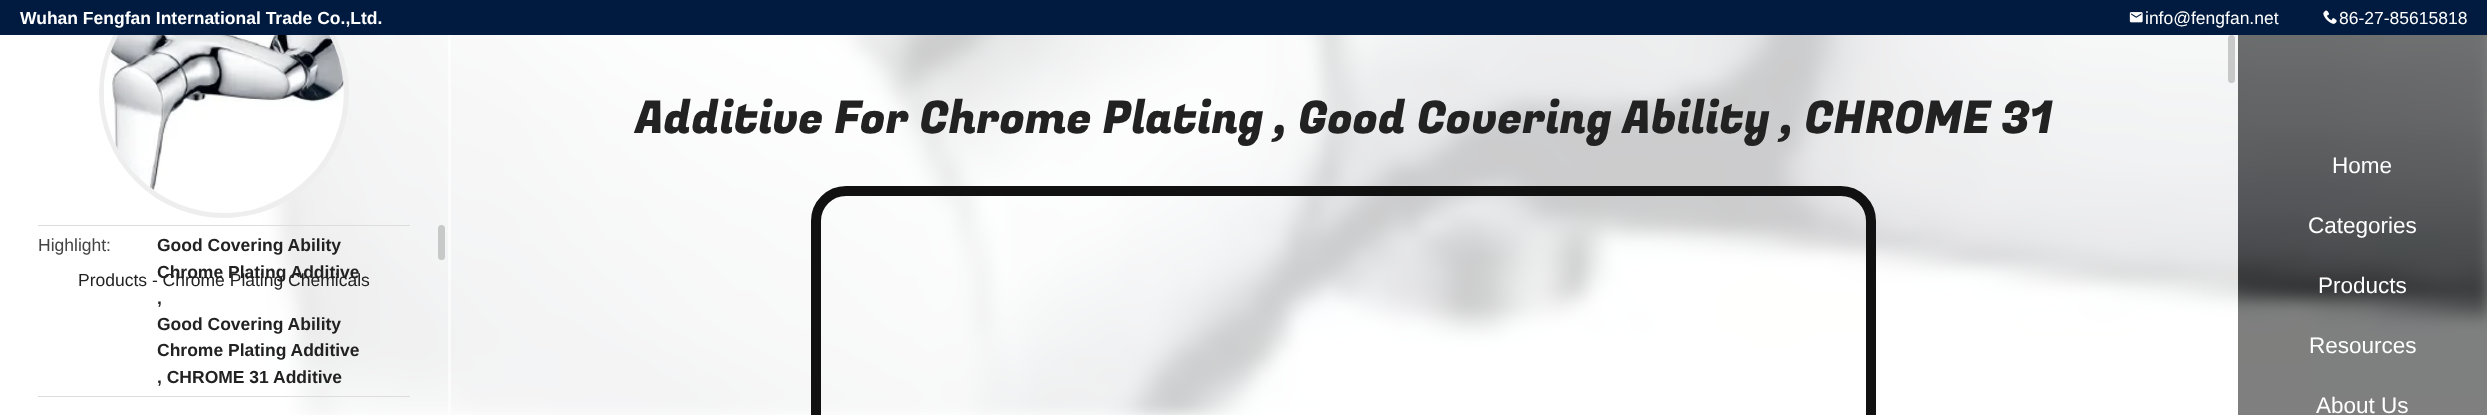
<svg xmlns="http://www.w3.org/2000/svg" width="2487" height="415" viewBox="0 0 2487 415">
  <style>
    .t1 { font: bold 17.5px Liberation Sans; fill: #fff; }
    .t2 { font: 17.5px Liberation Sans; fill: #fff; }
    .t3 { font: 45px Fugaz One; fill: #222; }
    .t4 { font: 17.5px Liberation Sans; fill: #444; }
    .t5 { font: bold 17.5px Liberation Sans; fill: #222; }
    .t6 { font: 17.5px Liberation Sans; fill: #222; }
    .t7 { font: 22.5px Liberation Sans; fill: #fff; }
  </style>
  <rect width="100%" height="100%" fill="#fff"/>
  <image x="251" y="35" width="2236" height="380" href="images/3.png"/>
  <rect x="251" y="35" width="199" height="380" fill="#ffffffcc"/>
  <circle cx="224" cy="93" r="122.5" fill="none" stroke="#eee" stroke-width="5"/>
  <rect x="0" y="0" width="2487" height="35" fill="#001b3f"/>
  <text x="20" y="24" class="t1">Wuhan Fengfan International Trade Co.,Ltd.</text>
  <image x="2129" y="12" width="14" height="11" href="images/1.png"/>
  <text x="2145" y="24" class="t2">info@fengfan.net</text>
  <image x="2323" y="10" width="14" height="14" href="images/2.png"/>
  <text x="2339" y="24" class="t2">86-27-85615818</text>
  <rect x="448" y="35" width="3" height="380" fill="#ffffff99"/>
  <rect x="450" y="35" width="1788" height="380" fill="#ffffffcc"/>
  <rect x="2228" y="35" width="7" height="48" rx="3.5" fill="#aaaaaa99"/>
  <text x="635" y="133" class="t3">Additive For Chrome Plating , Good Covering Ability , CHROME 31</text>
  <rect x="816" y="191" width="1055" height="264" rx="30" fill="none" stroke="#111" stroke-width="10"/>
  <rect x="38" y="225" width="372" height="1" fill="#ddd"/>
  <text x="38" y="251" class="t4">Highlight:</text>
  <text x="157" y="251" class="t5">Good Covering Ability</text>
  <text x="78" y="286" class="t6">Products - Chrome Plating Chemicals</text>
  <text x="157" y="278" class="t5">Chrome Plating Additive</text>
  <text x="157" y="304" class="t5">,</text>
  <text x="157" y="330" class="t5">Good Covering Ability</text>
  <text x="157" y="356" class="t5">Chrome Plating Additive</text>
  <text x="157" y="383" class="t5">, CHROME 31 Additive</text>
  <rect x="38" y="396" width="372" height="1" fill="#ddd"/>
  <rect x="438" y="225" width="7" height="35" rx="3.5" fill="#c7c8c8"/>
  <image x="104" y="35" width="240" height="167" href="images/4.png"/>
  <rect x="2238" y="35" width="249" height="380" fill="#00000080"/>
  <text x="2332" y="173" class="t7">Home</text>
  <text x="2308" y="233" class="t7">Categories</text>
  <text x="2318" y="293" class="t7">Products</text>
  <text x="2309" y="353" class="t7">Resources</text>
  <text x="2316" y="413" class="t7">About Us</text>
</svg>
